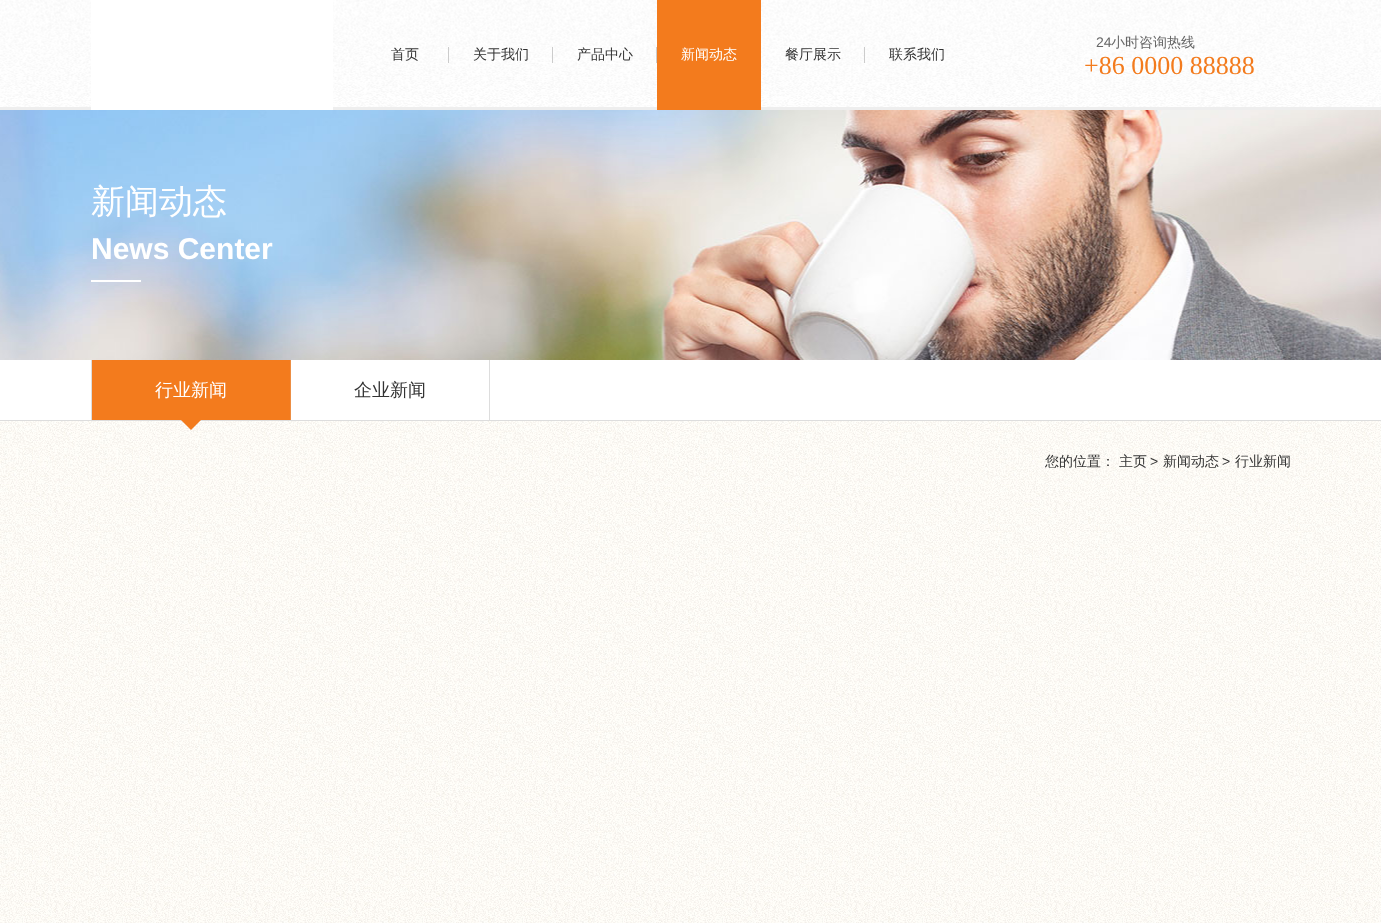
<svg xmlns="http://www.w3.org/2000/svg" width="1381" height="923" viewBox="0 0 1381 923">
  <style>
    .t1 { font: 500 14px WenQuanYi Zen Hei; fill: #333; }
    .t2 { font: 500 14px WenQuanYi Zen Hei; fill: #fff; }
    .t3 { font: 14px Liberation Sans; fill: #666; }
    .t4 { font: 500 14px WenQuanYi Zen Hei; fill: #666; }
    .t5 { font: 26px Liberation Serif; fill: #f37b1d; }
    .t6 { font: 500 34px WenQuanYi Zen Hei; fill: #fff; }
    .t7 { font: bold 30px Liberation Sans; fill: #fff; }
    .t8 { font: 500 18px WenQuanYi Zen Hei; fill: #fff; }
    .t9 { font: 500 18px WenQuanYi Zen Hei; fill: #333; }
    .t10 { font: 14px Liberation Sans; fill: #333; }
  </style>
  <defs>
    <clipPath id="clip1"><rect x="889" y="0" width="56" height="110"/></clipPath>
  </defs>
  <rect width="100%" height="100%" fill="#fff"/>
  <image x="0" y="0" width="1381" height="110" href="images/1.png"/>
  <rect x="91" y="0" width="242" height="110" fill="#fff"/>
  <rect x="448" y="47" width="1" height="16" fill="#ccc"/>
  <text x="391" y="59" class="t1">首页</text>
  <rect x="552" y="47" width="1" height="16" fill="#ccc"/>
  <text x="473" y="59" class="t1">关于我们</text>
  <rect x="656" y="47" width="1" height="16" fill="#ccc"/>
  <text x="577" y="59" class="t1">产品中心</text>
  <rect x="657" y="0" width="104" height="110" fill="#f37b1d"/>
  <text x="681" y="59" class="t2">新闻动态</text>
  <rect x="864" y="47" width="1" height="16" fill="#ccc"/>
  <text x="785" y="59" class="t1">餐厅展示</text>
  <g clip-path="url(#clip1)">
    <text x="889" y="59" class="t1">联系我们</text>
  </g>
  <text x="1096" y="47" class="t3">24</text>
  <text x="1111" y="47" class="t4">小时咨询热线</text>
  <text x="1084" y="74" class="t5">+86 0000 88888</text>
  <image x="0" y="110" width="1381" height="250" href="images/2.png"/>
  <text x="91" y="213" class="t6">新闻动态</text>
  <text x="91" y="259" class="t7">News Center</text>
  <rect x="91" y="280" width="50" height="2" fill="#fff"/>
  <image x="0" y="421" width="1381" height="502" href="images/3.png"/>
  <rect x="0" y="420" width="1381" height="1" fill="#ddd"/>
  <rect x="91" y="360" width="1" height="60" fill="#ddd"/>
  <rect x="290" y="360" width="1" height="60" fill="#ec8e44"/>
  <rect x="92" y="360" width="198" height="60" fill="#f37b1d"/>
  <text x="155" y="396" class="t8">行业新闻</text>
  <path d="M181 420H201L191 430Z" fill="#f37b1d"/>
  <rect x="489" y="360" width="1" height="60" fill="#ddd"/>
  <text x="354" y="396" class="t9">企业新闻</text>
  <text x="1045" y="466" class="t1">您的位置：</text>
  <text x="1119" y="466" class="t1">主页</text>
  <text x="1150" y="466" class="t10">&gt;</text>
  <text x="1163" y="466" class="t1">新闻动态</text>
  <text x="1222" y="466" class="t10">&gt;</text>
  <text x="1235" y="466" class="t1">行业新闻</text>
</svg>
